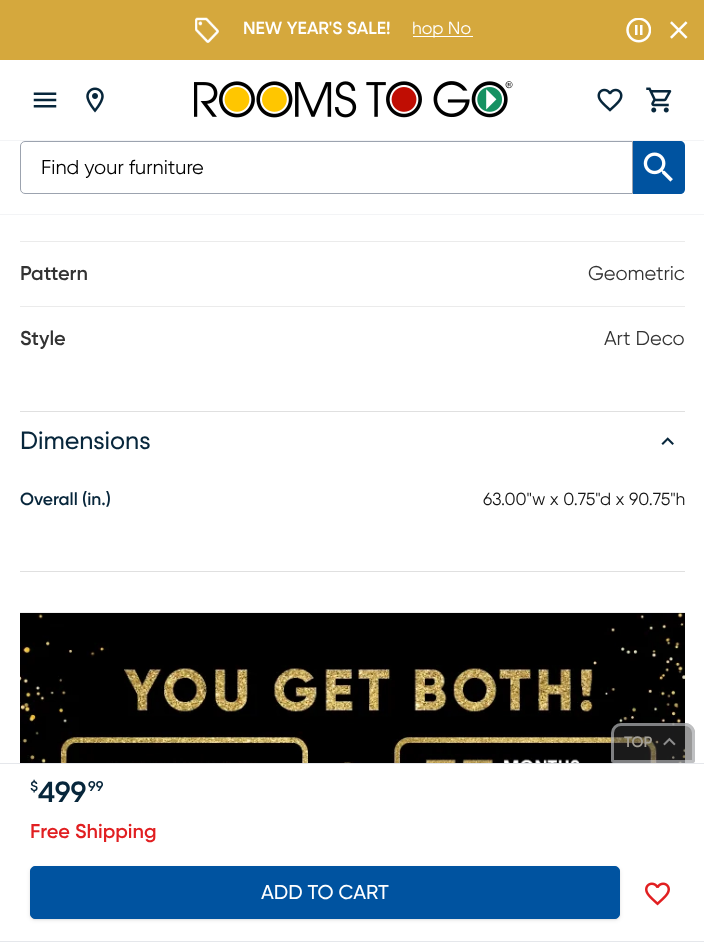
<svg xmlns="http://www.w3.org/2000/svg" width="704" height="942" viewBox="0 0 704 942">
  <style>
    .t1 { font: 600 17.5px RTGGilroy; fill: #fff; }
    .t2 { font: 17.5px RTGGilroy; fill: #fff; }
    .t3 { font: 20px RTGGilroy; fill: #000; }
    .t4 { font: 600 20px RTGGilroy; fill: #333; }
    .t5 { font: 20px RTGGilroy; fill: #333; }
    .t6 { font: 500 25px RTGGilroy; fill: #07263b; }
    .t7 { font: 600 17.5px RTGGilroy; fill: #07263b; }
    .t8 { font: 17.5px RTGGilroy; fill: #151515; }
    .t9 { font: 600 14px RTGGilroy; fill: #07263b; }
    .t10 { font: 600 29px RTGGilroy; fill: #07263b; }
    .t11 { font: 600 20px RTGGilroy; fill: #e11f21; }
    .t12 { font: 500 20px RTGGilroy; fill: #fff; }
    .t13 { font: 600 15px RTGGilroy; fill: #a5a198; }
  </style>
  <rect width="100%" height="100%" fill="#fff"/>
  <rect x="0" y="140" width="704" height="1" fill="#f3f4f6"/>
  <rect x="0" y="0" width="704" height="60" fill="#d5a83d"/>
  <image x="195" y="17" width="24" height="26" href="images/1.png"/>
  <text x="243" y="34" class="t1">NEW YEAR'S SALE!</text>
  <rect x="413" y="36" width="60" height="1" fill="#fff"/>
  <text x="412" y="34" class="t2">hop No</text>
  <image x="626" y="18" width="25" height="25" href="images/2.png"/>
  <image x="670" y="21" width="18" height="18" href="images/3.png"/>
  <image x="33" y="92" width="24" height="16" href="images/4.png"/>
  <image x="86" y="87" width="18" height="26" href="images/5.png"/>
  <image x="194" y="81" width="319" height="37" href="images/6.png"/>
  <image x="597" y="88" width="26" height="24" href="images/7.png"/>
  <image x="646" y="87" width="26" height="26" href="images/8.png"/>
  <rect x="0" y="214" width="704" height="1" fill="#f3f4f6"/>
  <path d="M25 141.5H632.5V193.5H25C22.5 193.5 20.5 191.5 20.5 189V146C20.5 143.5 22.5 141.5 25 141.5Z" fill="none" stroke="#9ca3af"/>
  <text x="41" y="174" class="t3">Find your furniture</text>
  <path d="M633 141H680C683 141 685 143 685 146V189C685 192 683 194 680 194H633Z" fill="#0053a0"/>
  <image x="643" y="152" width="30" height="30" href="images/9.png"/>
  <rect x="20" y="241" width="665" height="1" fill="#ebebeb"/>
  <rect x="20" y="306" width="665" height="1" fill="#ebebeb"/>
  <text x="20" y="280" class="t4">Pattern</text>
  <text x="588" y="280" class="t5">Geometric</text>
  <text x="20" y="345" class="t4">Style</text>
  <text x="604" y="345" class="t5">Art Deco</text>
  <rect x="20" y="411" width="665" height="1" fill="#e0e0e0"/>
  <text x="20" y="449" class="t6">Dimensions</text>
  <image x="661" y="437" width="13" height="8" href="images/10.png"/>
  <text x="20" y="505" class="t7">Overall (in.)</text>
  <text x="483" y="505" class="t8">63.00"w x 0.75"d x 90.75"h</text>
  <rect x="20" y="571" width="665" height="1" fill="#e0e0e0"/>
  <image x="20" y="612" width="665" height="151" href="images/11.png"/>
  <rect x="0" y="763" width="704" height="1" fill="#e5e7eb"/>
  <rect x="0" y="941" width="704" height="1" fill="#e5e7eb"/>
  <text x="30" y="791" class="t9">$</text>
  <text x="38" y="802" class="t10">499</text>
  <text x="88" y="791" class="t9">99</text>
  <text x="30" y="838" class="t11">Free Shipping</text>
  <rect x="31" y="869" width="588" height="50" rx="4" fill="#0000001a" filter="blur(1px)"/>
  <rect x="30" y="868" width="590" height="52" rx="5" fill="#0000001a" filter="blur(2px)"/>
  <rect x="30.5" y="866.5" width="589" height="52" rx="4.5" fill="#0053a0" stroke="#0053a0"/>
  <text x="261" y="899" class="t12">ADD TO CART</text>
  <image x="645" y="882" width="25" height="24" href="images/12.png"/>
  <path d="M621 723H685C690.5 723 695 727.5 695 733V760.5C695 762 694 763 692.5 763H613.5C612 763 611 762 611 760.5V733C611 727.5 615.5 723 621 723Z" fill="#33333380"/>
  <path d="M621 724.5H685C689.5 724.5 693.5 728.5 693.5 733V760.5C693.5 761 693 761.5 692.5 761.5H613.5C613 761.5 612.5 761 612.5 760.5V733C612.5 728.5 616.5 724.5 621 724.5Z" fill="none" stroke="#e5e7eb80" stroke-width="3"/>
  <text x="624" y="747" class="t13">TOP</text>
  <image x="663" y="737" width="13" height="9" href="images/13.png"/>
</svg>
